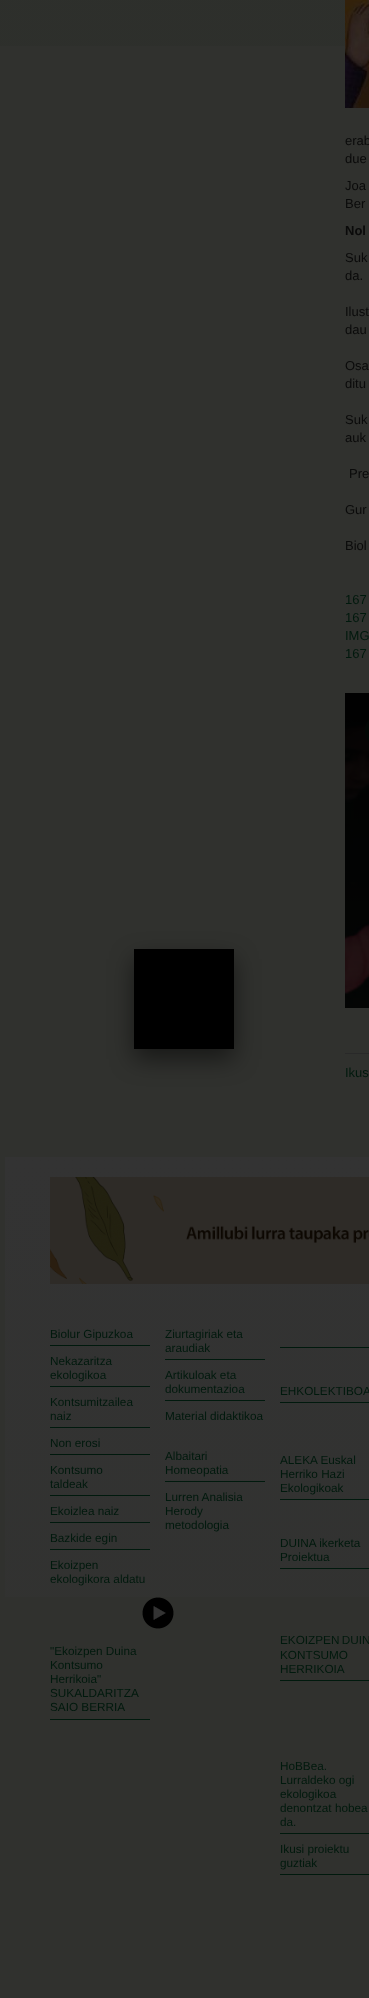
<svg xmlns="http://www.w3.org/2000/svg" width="369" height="1998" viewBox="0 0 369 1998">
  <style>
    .t1 { font: 13px Liberation Sans; fill: #0a0a0a; }
    .t2 { font: bold 13px Liberation Sans; fill: #0a0a0a; }
    .t3 { font: 13px Liberation Sans; fill: #00190d; }
    .t4 { font: 11.75px Liberation Sans; fill: #00190d; }
  </style>
  <defs>
    <linearGradient id="g1" gradientUnits="userSpaceOnUse" x1="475" y1="-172" x2="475" y2="1137"><stop offset="0" stop-color="#2d2f2b"/><stop offset="1" stop-color="#30312f"/></linearGradient>
    <linearGradient id="g2" gradientUnits="userSpaceOnUse" x1="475" y1="1157" x2="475" y2="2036"><stop offset="0" stop-color="#333"/><stop offset="1" stop-color="#30312e"/></linearGradient>
  </defs>
  <rect width="100%" height="100%" fill="#30312e"/>
  <rect x="0" y="0" width="369" height="46" fill="url(#g1)"/>
  <image x="345" y="0" width="24" height="108" href="images/1.png"/>
  <text x="345" y="145" class="t1">erab</text>
  <text x="345" y="163" class="t1">due</text>
  <text x="345" y="190" class="t1">Joa</text>
  <text x="345" y="208" class="t1">Ber</text>
  <text x="345" y="235" class="t2">Nol</text>
  <text x="345" y="262" class="t1">Suk</text>
  <text x="345" y="280" class="t1">da.</text>
  <text x="345" y="316" class="t1">Ilust</text>
  <text x="345" y="334" class="t1">dau</text>
  <text x="345" y="370" class="t1">Osa</text>
  <text x="345" y="388" class="t1">ditu</text>
  <text x="345" y="424" class="t1">Suk</text>
  <text x="345" y="442" class="t1">auk</text>
  <text x="349" y="478" class="t1">Pre</text>
  <text x="345" y="514" class="t1">Gur</text>
  <text x="345" y="550" class="t1">Biol</text>
  <text x="345" y="604" class="t3">167</text>
  <text x="345" y="622" class="t3">167</text>
  <text x="345" y="640" class="t3">IMG</text>
  <text x="345" y="658" class="t3">167</text>
  <image x="345" y="693" width="24" height="315" href="images/2.png"/>
  <rect x="345" y="1053" width="24" height="1" fill="#292929"/>
  <text x="345" y="1077" class="t3">Ikus</text>
  <rect x="5" y="1157" width="364" height="440" fill="url(#g2)"/>
  <image x="50" y="1177" width="319" height="107" href="images/3.png"/>
  <rect x="50" y="1345" width="100" height="1" fill="#00190d"/>
  <text x="50" y="1338" class="t4">Biolur Gipuzkoa</text>
  <rect x="50" y="1386" width="100" height="1" fill="#00190d"/>
  <text x="50" y="1365" class="t4">Nekazaritza</text>
  <text x="50" y="1379" class="t4">ekologikoa</text>
  <rect x="50" y="1427" width="100" height="1" fill="#00190d"/>
  <text x="50" y="1406" class="t4">Kontsumitzailea</text>
  <text x="50" y="1420" class="t4">naiz</text>
  <rect x="50" y="1454" width="100" height="1" fill="#00190d"/>
  <text x="50" y="1447" class="t4">Non erosi</text>
  <rect x="50" y="1495" width="100" height="1" fill="#00190d"/>
  <text x="50" y="1474" class="t4">Kontsumo</text>
  <text x="50" y="1488" class="t4">taldeak</text>
  <rect x="50" y="1522" width="100" height="1" fill="#00190d"/>
  <text x="50" y="1515" class="t4">Ekoizlea naiz</text>
  <rect x="50" y="1549" width="100" height="1" fill="#00190d"/>
  <text x="50" y="1542" class="t4">Bazkide egin</text>
  <text x="50" y="1569" class="t4">Ekoizpen</text>
  <text x="50" y="1583" class="t4">ekologikora aldatu</text>
  <rect x="165" y="1359" width="100" height="1" fill="#00190d"/>
  <text x="165" y="1338" class="t4">Ziurtagiriak eta</text>
  <text x="165" y="1352" class="t4">araudiak</text>
  <rect x="165" y="1400" width="100" height="1" fill="#00190d"/>
  <text x="165" y="1379" class="t4">Artikuloak eta</text>
  <text x="165" y="1393" class="t4">dokumentazioa</text>
  <text x="165" y="1420" class="t4">Material didaktikoa</text>
  <rect x="165" y="1481" width="100" height="1" fill="#00190d"/>
  <text x="165" y="1460" class="t4">Albaitari</text>
  <text x="165" y="1474" class="t4">Homeopatia</text>
  <text x="165" y="1501" class="t4">Lurren Analisia</text>
  <text x="165" y="1515" class="t4">Herody</text>
  <text x="165" y="1529" class="t4">metodologia</text>
  <image x="142" y="1597" width="32" height="32" href="images/4.png"/>
  <rect x="50" y="1719" width="100" height="1" fill="#00190d"/>
  <text x="50" y="1655" class="t4">"Ekoizpen Duina</text>
  <text x="50" y="1669" class="t4">Kontsumo</text>
  <text x="50" y="1683" class="t4">Herrikoia"</text>
  <text x="50" y="1697" class="t4">SUKALDARITZA</text>
  <text x="50" y="1711" class="t4">SAIO BERRIA</text>
  <rect x="280" y="1347" width="89" height="1" fill="#00190d"/>
  <rect x="280" y="1402" width="89" height="1" fill="#00190d"/>
  <text x="280" y="1395" class="t4">EHKOLEKTIBOA</text>
  <rect x="280" y="1499" width="89" height="1" fill="#00190d"/>
  <text x="280" y="1464" class="t4">ALEKA Euskal</text>
  <text x="280" y="1478" class="t4">Herriko Hazi</text>
  <text x="280" y="1492" class="t4">Ekologikoak</text>
  <rect x="280" y="1568" width="89" height="1" fill="#00190d"/>
  <text x="280" y="1547" class="t4">DUINA ikerketa</text>
  <text x="280" y="1561" class="t4">Proiektua</text>
  <rect x="280" y="1680" width="89" height="1" fill="#00190d"/>
  <text x="280" y="1644" word-spacing="-1" class="t4">EKOIZPEN DUIN</text>
  <text x="280" y="1659" class="t4">KONTSUMO</text>
  <text x="280" y="1673" class="t4">HERRIKOIA</text>
  <rect x="280" y="1833" width="89" height="1" fill="#00190d"/>
  <text x="280" y="1770" class="t4">HoBBea.</text>
  <text x="280" y="1784" class="t4">Lurraldeko ogi</text>
  <text x="280" y="1798" class="t4">ekologikoa</text>
  <text x="280" y="1812" class="t4">denontzat hobea</text>
  <text x="280" y="1826" class="t4">da.</text>
  <rect x="280" y="1874" width="89" height="1" fill="#00190d"/>
  <text x="280" y="1853" class="t4">Ikusi proiektu</text>
  <text x="280" y="1867" class="t4">guztiak</text>
  <rect x="134" y="959" width="100" height="100" fill="#00000080" filter="blur(12.5px)"/>
  <rect x="134" y="949" width="100" height="100" fill="#000"/>
</svg>
